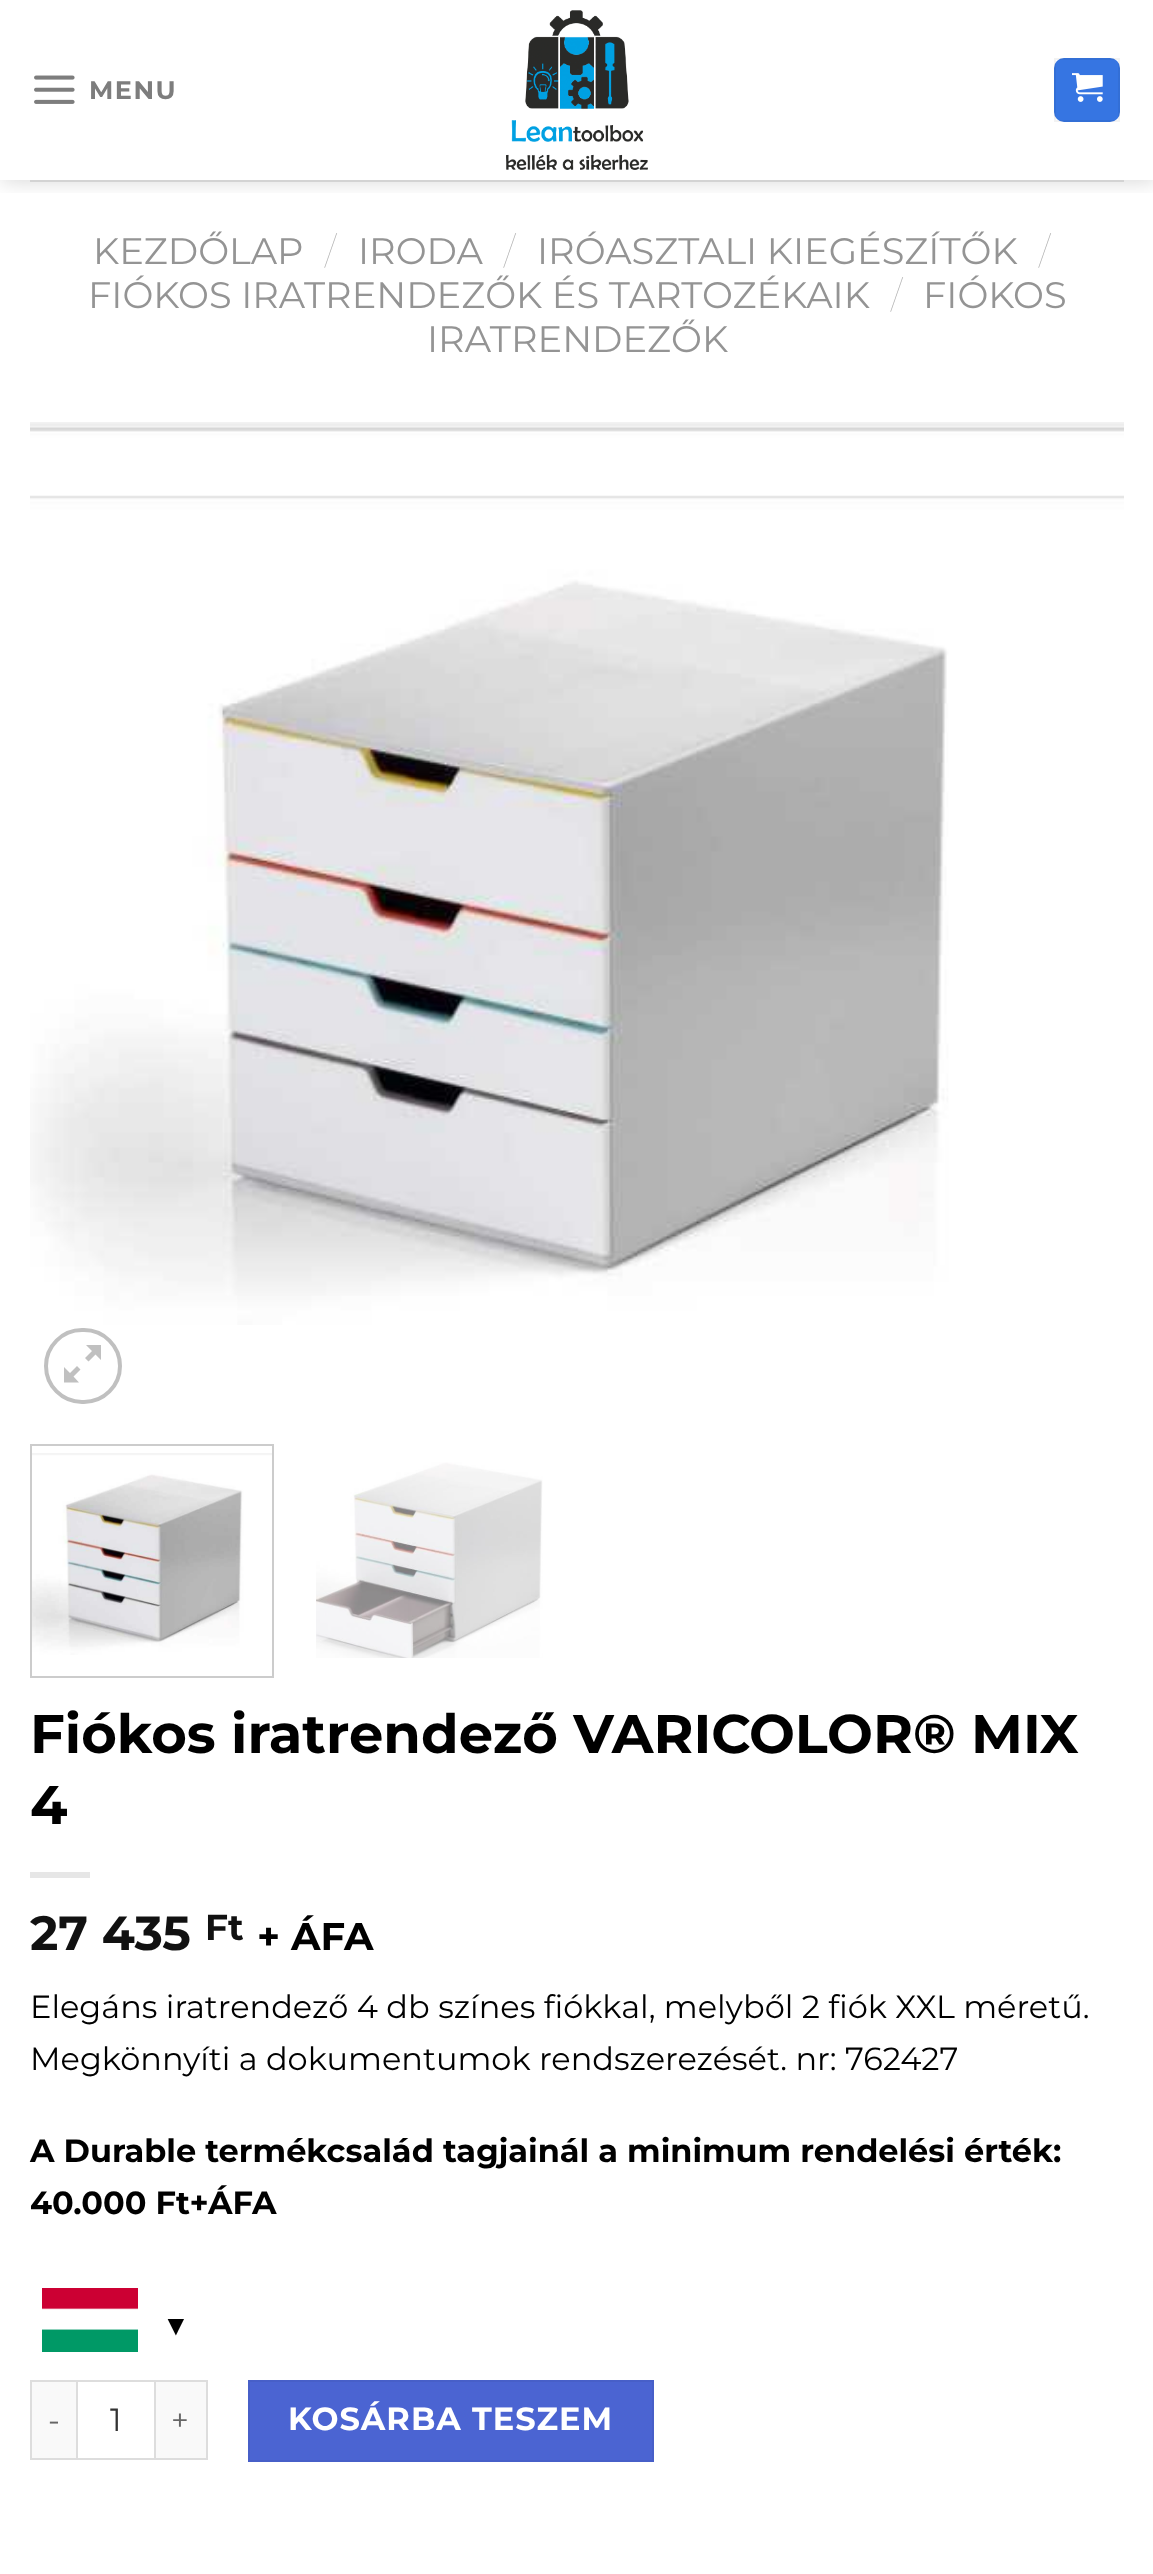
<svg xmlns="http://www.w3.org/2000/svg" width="1153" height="2574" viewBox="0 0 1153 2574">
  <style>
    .t1 { font: bold 25.5px Montserrat; letter-spacing: 1.5px; fill: #7d7d7d; }
    .t2 { font: 36.8px Montserrat; fill: #949494; }
    .t3 { font: 100 36.8px Montserrat; fill: #b2b2b2; }
    .t4 { font: bold 54.4px Montserrat; fill: #000; }
    .t5 { font: bold 48px Montserrat; fill: #111; }
    .t6 { font: bold 36px Montserrat; fill: #111; }
    .t7 { font: bold 38.5px Montserrat; fill: #000; }
    .t8 { font: 32px Montserrat; fill: #000; }
    .t9 { font: bold 32px Montserrat; fill: #000; }
    .t10 { font: 28px Liberation Sans; fill: #000; }
    .t11 { font: 31px Montserrat; letter-spacing: 1px; fill: #666; }
    .t12 { font: 32px Montserrat; fill: #333; }
    .t13 { font: bold 32px Montserrat; letter-spacing: 1px; fill: #fff; }
  </style>
  <defs>
    <clipPath id="clip1"><rect x="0" y="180" width="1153" height="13"/></clipPath>
  </defs>
  <rect width="100%" height="100%" fill="#fff"/>
  <g clip-path="url(#clip1)">
    <rect x="2" y="2" width="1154" height="180" fill="#00000026" filter="blur(10px)"/>
  </g>
  <image x="34" y="75" width="41" height="29" href="images/1.png"/>
  <text x="89" y="99" class="t1">MENU</text>
  <image x="506" y="10" width="142" height="160" href="images/2.png"/>
  <rect x="1054" y="58" width="66" height="64" rx="10" fill="#3675e2"/>
  <rect x="1055" y="59" width="64" height="62" fill="none" stroke="#0000000d" stroke-width="2"/>
  <image x="1072" y="73" width="31" height="29" href="images/3.png"/>
  <rect x="30" y="180" width="1094" height="2" fill="#d3d3d3"/>
  <text x="93" y="264" class="t2">KEZDŐLAP</text>
  <text x="325" y="264" class="t3">/</text>
  <text x="358" y="264" class="t2">IRODA</text>
  <text x="504" y="264" class="t3">/</text>
  <text x="537" y="264" class="t2">IRÓASZTALI KIEGÉSZÍTŐK</text>
  <text x="1039" y="264" class="t3">/</text>
  <text x="88" y="308" class="t2">FIÓKOS IRATRENDEZŐK ÉS TARTOZÉKAIK</text>
  <text x="891" y="308" class="t3">/</text>
  <text x="923" y="308" class="t2">FIÓKOS</text>
  <text x="427" y="352" class="t2">IRATRENDEZŐK</text>
  <image x="30" y="422" width="1094" height="903" href="images/4.png"/>
  <rect x="46" y="1330" width="74" height="72" rx="36" fill="none" stroke="#c0c0c0" stroke-width="4"/>
  <path d="M101 1345V1360L95.5 1354.5L88.5 1361.5L85 1358L92 1351L86 1345ZM80.5 1369.5L73.5 1376.5L79 1382.5H64V1367L70 1373L77 1366Z" fill="#c0c0c0"/>
  <rect x="31" y="1445" width="242" height="232" fill="none" stroke="#ccc" stroke-width="2"/>
  <image x="32" y="1453" width="240" height="202" href="images/5.png"/>
  <image x="316" y="1462" width="227" height="196" href="images/6.png"/>
  <text x="30" y="1753" class="t4">Fiókos iratrendező VARICOLOR® MIX</text>
  <text x="30" y="1824" class="t4">4</text>
  <rect x="30" y="1872" width="60" height="6" fill="#e6e6e6"/>
  <text x="30" y="1950" class="t5">27 435</text>
  <text x="205" y="1940" class="t6">Ft</text>
  <text x="257" y="1950" class="t7">+ ÁFA</text>
  <text x="30" y="2018" class="t8">Elegáns iratrendező 4 db színes fiókkal, melyből 2 fiók XXL méretű.</text>
  <text x="30" y="2070" class="t8">Megkönnyíti a dokumentumok rendszerezését. nr: 762427</text>
  <text x="30" y="2162" class="t9">A Durable termékcsalád tagjainál a minimum rendelési érték:</text>
  <text x="30" y="2214" class="t9">40.000 Ft+ÁFA</text>
  <image x="42" y="2288" width="96" height="64" href="images/7.png"/>
  <text x="162" y="2335" class="t10">▼</text>
  <rect x="32" y="2382" width="44" height="76" fill="#f9f9f9"/>
  <rect x="30" y="2380" width="46" height="2" fill="#ddd"/>
  <rect x="30" y="2458" width="46" height="2" fill="#ddd"/>
  <rect x="30" y="2380" width="2" height="80" fill="#ddd"/>
  <text x="48" y="2431" class="t11">-</text>
  <rect x="77" y="2381" width="78" height="78" fill="none" stroke="#ddd" stroke-width="2"/>
  <text x="110" y="2431" class="t12">1</text>
  <rect x="156" y="2382" width="50" height="76" fill="#f9f9f9"/>
  <rect x="156" y="2380" width="52" height="2" fill="#ddd"/>
  <rect x="206" y="2380" width="2" height="80" fill="#ddd"/>
  <rect x="156" y="2458" width="52" height="2" fill="#ddd"/>
  <text x="171" y="2431" class="t11">+</text>
  <rect x="249" y="2381" width="404" height="80" fill="#4b64d2" stroke="#475fc8" stroke-width="2"/>
  <text x="288" y="2430" class="t13">KOSÁRBA TESZEM</text>
</svg>
